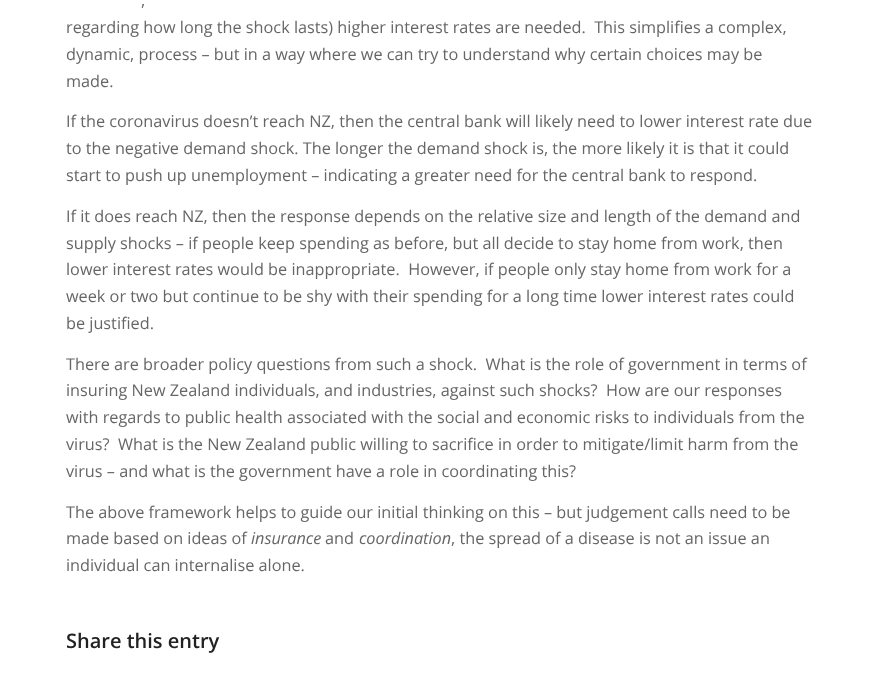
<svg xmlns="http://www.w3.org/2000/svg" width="878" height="677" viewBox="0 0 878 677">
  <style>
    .t1 { font: 16.25px Open Sans; fill: #666; }
    .t2 { font: italic 16.25px Open Sans; fill: #666; }
    .t3 { font: 600 20px Open Sans; fill: #222; }
  </style>
  <rect width="100%" height="100%" fill="#fff"/>
  <text x="141" y="6" class="t1">,</text>
  <text x="66" y="33" class="t1" xml:space="preserve">regarding how long the shock lasts) higher interest rates are needed.  This simplifies a complex,</text>
  <text x="66" y="60" class="t1">dynamic, process – but in a way where we can try to understand why certain choices may be</text>
  <text x="66" y="87" class="t1">made.</text>
  <text x="66" y="127" class="t1">If the coronavirus doesn’t reach NZ, then the central bank will likely need to lower interest rate due</text>
  <text x="66" y="154" class="t1">to the negative demand shock. The longer the demand shock is, the more likely it is that it could</text>
  <text x="66" y="181" class="t1">start to push up unemployment – indicating a greater need for the central bank to respond.</text>
  <text x="66" y="222" class="t1">If it does reach NZ, then the response depends on the relative size and length of the demand and</text>
  <text x="66" y="249" class="t1">supply shocks – if people keep spending as before, but all decide to stay home from work, then</text>
  <text x="66" y="275" class="t1" xml:space="preserve">lower interest rates would be inappropriate.  However, if people only stay home from work for a</text>
  <text x="66" y="302" class="t1">week or two but continue to be shy with their spending for a long time lower interest rates could</text>
  <text x="66" y="329" class="t1">be justified.</text>
  <text x="66" y="370" class="t1" xml:space="preserve">There are broader policy questions from such a shock.  What is the role of government in terms of</text>
  <text x="66" y="396" class="t1" xml:space="preserve">insuring New Zealand individuals, and industries, against such shocks?  How are our responses</text>
  <text x="66" y="423" class="t1">with regards to public health associated with the social and economic risks to individuals from the</text>
  <text x="66" y="450" class="t1" xml:space="preserve">virus?  What is the New Zealand public willing to sacrifice in order to mitigate/limit harm from the</text>
  <text x="66" y="477" class="t1">virus – and what is the government have a role in coordinating this?</text>
  <text x="66" y="518" class="t1">The above framework helps to guide our initial thinking on this – but judgement calls need to be</text>
  <text x="66" y="544" class="t1">made based on ideas of</text>
  <text x="251" y="544" class="t2">insurance</text>
  <text x="325" y="544" class="t1">and</text>
  <text x="359" y="544" class="t2">coordination</text>
  <text x="451" y="544" class="t1">, the spread of a disease is not an issue an</text>
  <text x="66" y="571" class="t1">individual can internalise alone.</text>
  <text x="66" y="648" class="t3">Share this entry</text>
</svg>
